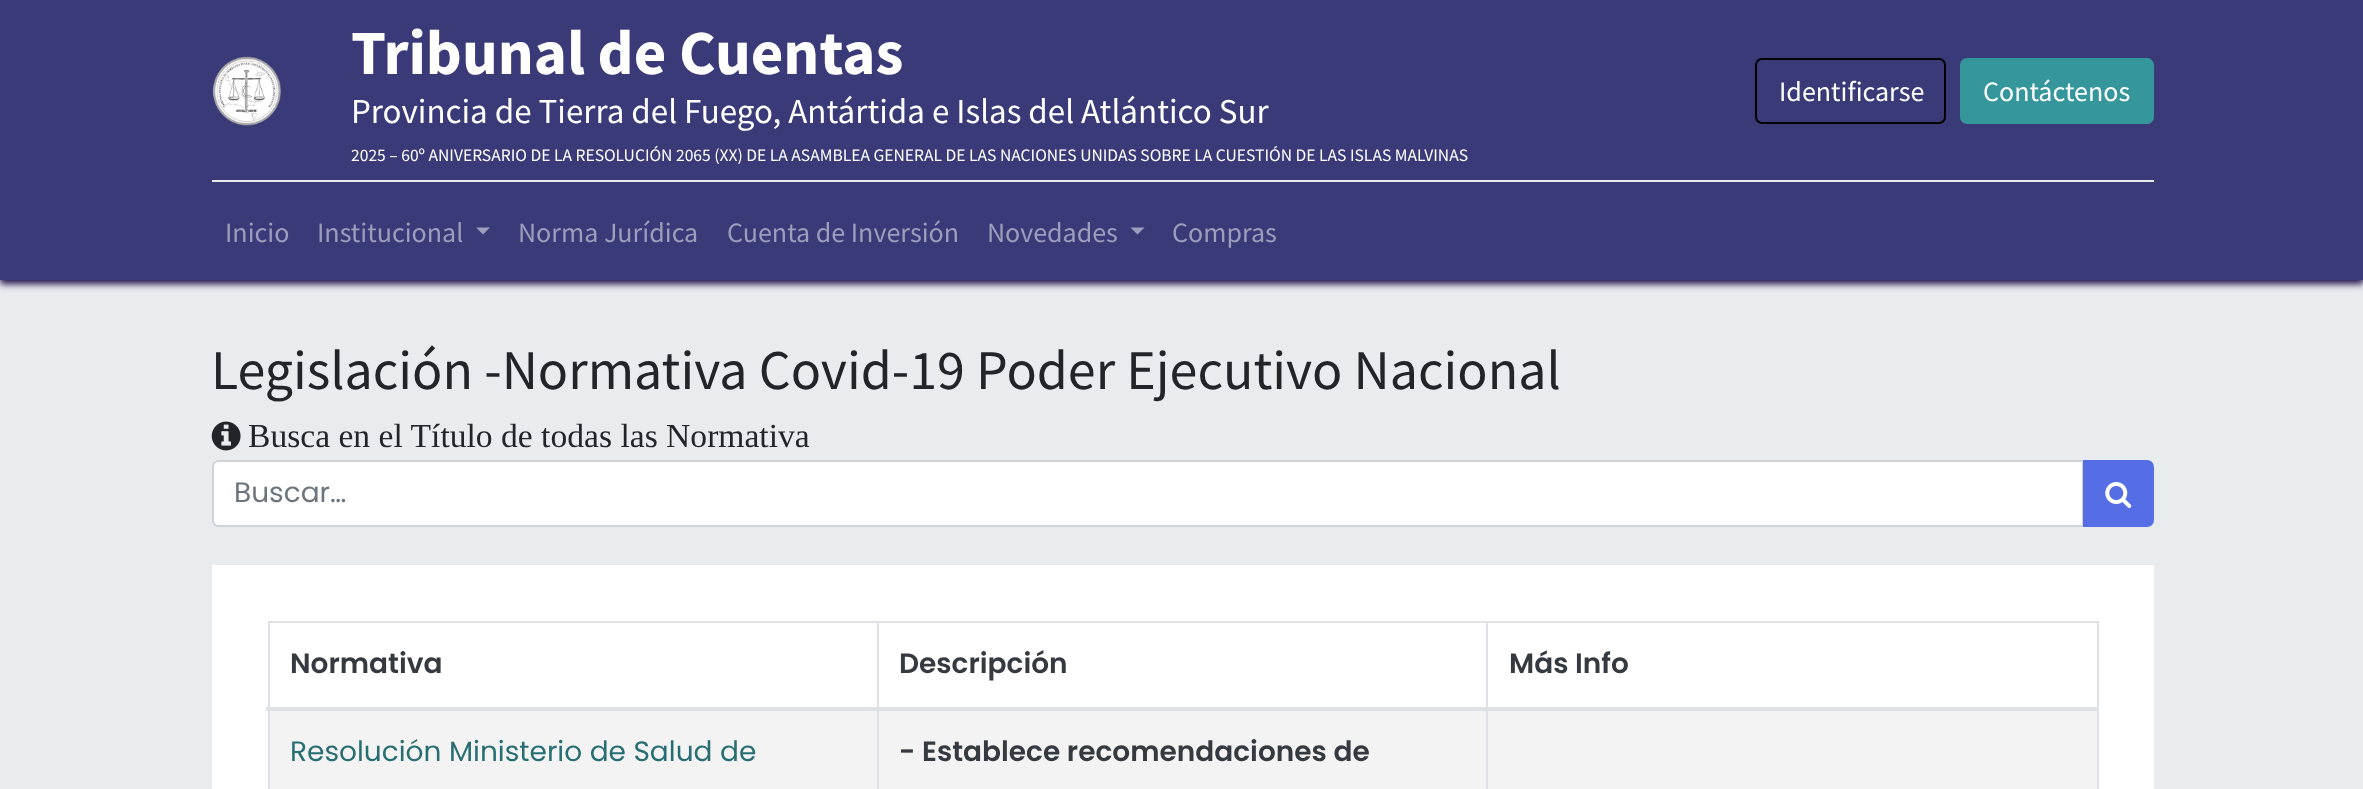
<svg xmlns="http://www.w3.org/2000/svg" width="2363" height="789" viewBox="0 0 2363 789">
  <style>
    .t1 { font: bold 63px Source Sans Pro; fill: #fff; }
    .t2 { font: 35px Source Sans Pro; fill: #fff; }
    .t3 { font: 17.5px Source Sans Pro; fill: #fff; }
    .t4 { font: 28px Source Sans Pro; fill: #fff; }
    .t5 { font: 28px Source Sans Pro; fill: #9d9dbc; }
    .t6 { font: 56px Source Sans Pro; fill: #212529; }
    .t7 { font: 33.6px Liberation Serif; fill: #212529; }
    .t8 { font: 28px Poppins; fill: #6c757d; }
    .t9 { font: 600 28px Poppins; fill: #343a40; }
    .t10 { font: 28px Poppins; fill: #276e72; }
  </style>
  <rect width="100%" height="100%" fill="#e9ecef"/>
  <rect x="0" y="4" width="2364" height="280" fill="#21104a" filter="blur(3.5px)"/>
  <rect x="0" y="0" width="2363" height="280" fill="#3a3a78"/>
  <image x="212" y="56" width="69" height="70" href="images/1.png"/>
  <text x="351" y="74" class="t1">Tribunal de Cuentas</text>
  <text x="351" y="123" class="t2">Provincia de Tierra del Fuego, Antártida e Islas del Atlántico Sur</text>
  <text x="351" y="161" class="t3">2025 – 60º ANIVERSARIO DE LA RESOLUCIÓN 2065 (XX) DE LA ASAMBLEA GENERAL DE LAS NACIONES UNIDAS SOBRE LA CUESTIÓN DE LAS ISLAS MALVINAS</text>
  <rect x="1756" y="59" width="189" height="64" rx="6" fill="none" stroke="#000" stroke-width="2"/>
  <text x="1779" y="101" class="t4">Identificarse</text>
  <rect x="1961" y="59" width="192" height="64" rx="6" fill="#35979c" stroke="#35979c" stroke-width="2"/>
  <text x="1983" y="101" class="t4">Contáctenos</text>
  <rect x="212" y="180" width="1942" height="2" fill="#e9ecef"/>
  <text x="225" y="242" class="t5">Inicio</text>
  <text x="317" y="242" class="t5">Institucional</text>
  <path d="M476 227.5H490L483 234.5Z" fill="#9d9dbc"/>
  <text x="518" y="242" class="t5">Norma Jurídica</text>
  <text x="727" y="242" class="t5">Cuenta de Inversión</text>
  <text x="987" y="242" class="t5">Novedades</text>
  <path d="M1130.5 227.5H1144.5L1137.5 234.5Z" fill="#9d9dbc"/>
  <text x="1172" y="242" class="t5">Compras</text>
  <text x="211" y="389" class="t6">Legislación -Normativa Covid-19 Poder Ejecutivo Nacional</text>
  <image x="211" y="421" width="30" height="30" href="images/2.png"/>
  <text x="248" y="447" class="t7">Busca en el Título de todas las Normativa</text>
  <path d="M219 461H2083V526H219C215.5 526 213 523.5 213 520V467C213 463.5 215.5 461 219 461Z" fill="#fff" stroke="#ced4da" stroke-width="2"/>
  <text x="234" y="502" class="t8">Buscar…</text>
  <path d="M2084 461H2147C2150.5 461 2153 463.5 2153 467V520C2153 523.5 2150.5 526 2147 526H2084Z" fill="#556ee6" stroke="#556ee6" stroke-width="2"/>
  <image x="2105" y="482" width="27" height="26" href="images/3.png"/>
  <rect x="212" y="565" width="1942" height="224" fill="#fff"/>
  <rect x="268" y="621" width="1830" height="2" fill="#dee2e6"/>
  <rect x="2097" y="621" width="2" height="168" fill="#dee2e6"/>
  <rect x="268" y="621" width="2" height="168" fill="#dee2e6"/>
  <text x="290" y="673" class="t9">Normativa</text>
  <text x="899" y="673" class="t9">Descripción</text>
  <rect x="270" y="711" width="1827" height="78" fill="#f3f3f3"/>
  <rect x="877" y="621" width="2" height="168" fill="#dee2e6"/>
  <rect x="1486" y="621" width="2" height="168" fill="#dee2e6"/>
  <rect x="266" y="707" width="1832" height="4" fill="#dee2e6"/>
  <text x="1509" y="673" class="t9">Más Info</text>
  <text x="290" y="761" class="t10">Resolución Ministerio de Salud de</text>
  <text x="899" y="761" class="t9">- Establece recomendaciones de</text>
</svg>
